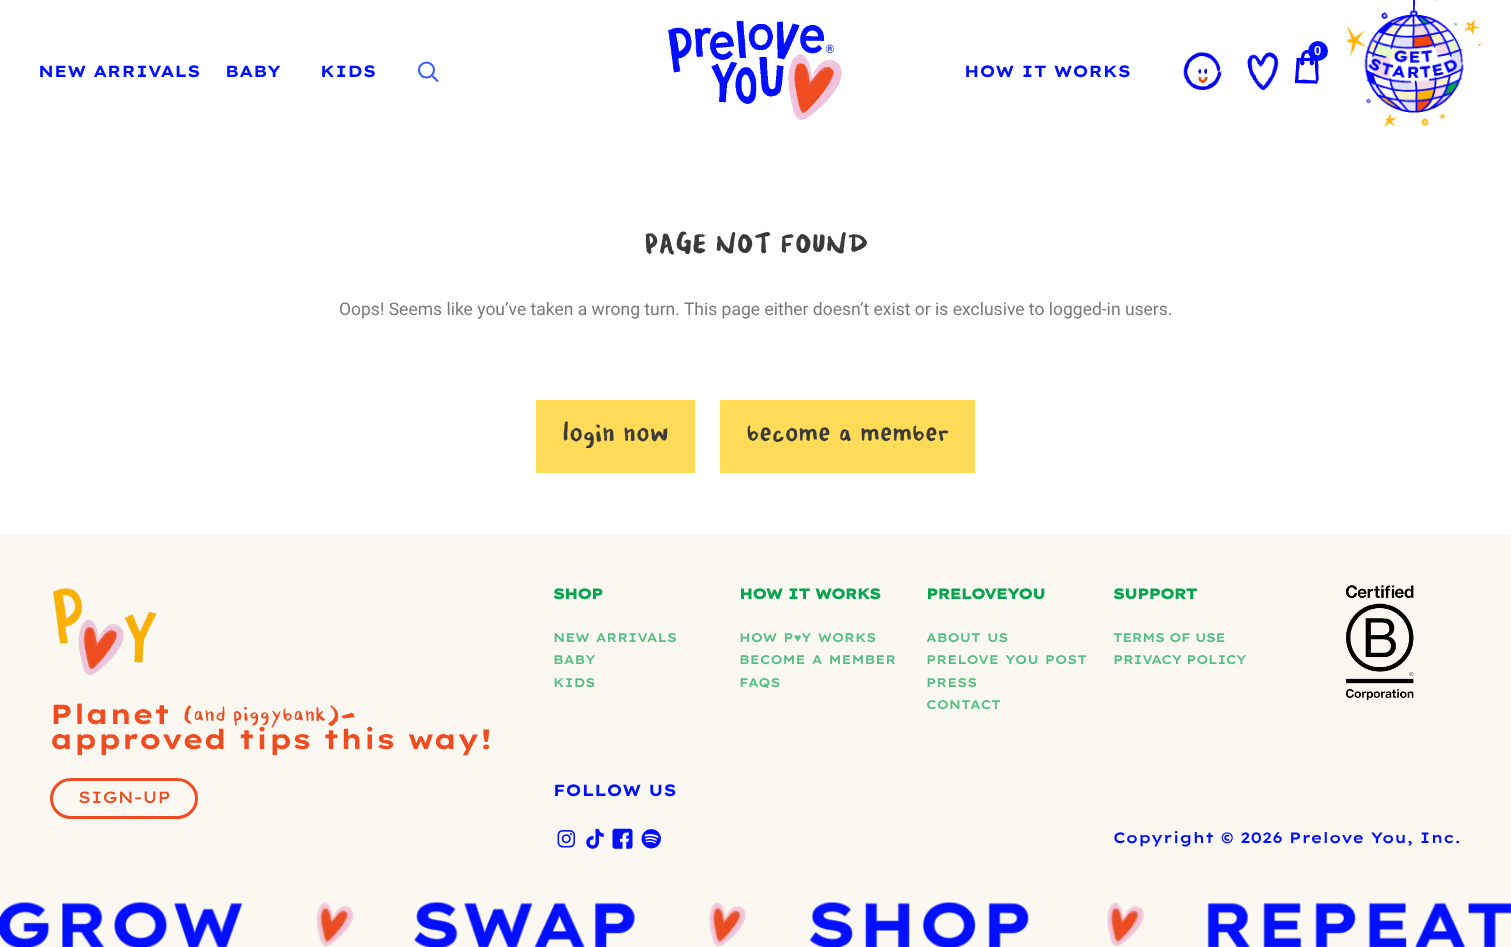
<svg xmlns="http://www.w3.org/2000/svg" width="1511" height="947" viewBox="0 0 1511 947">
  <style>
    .t1 { font: bold 16.25px Lexend Giga; fill: #000fff; }
    .t2 { font: 600 12.5px Roboto; fill: #fff; }
    .t3 { font: bold 35px 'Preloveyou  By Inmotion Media'; fill: #3a3a3a; }
    .t4 { font: 17.5px Roboto; fill: #7a7a7a; }
    .t5 { font: bold 32.5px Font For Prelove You; fill: #3a3a3a; }
    .t6 { font: bold 27.5px Lexend Giga; fill: #ef4c22; }
    .t7 { font: 27.5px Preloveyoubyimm; fill: #ef4c22; }
    .t8 { font: 500 16.25px Lexend Giga; fill: #ef4c22; }
    .t9 { font: 800 15px Lexend Giga; letter-spacing: -1.25px; fill: #08a44f; }
    .t10 { font: 600 12.5px Lexend Giga; letter-spacing: -0.1px; fill: #55bf83; }
    .t11 { font: bold 12.5px Liberation Sans; letter-spacing: -0.1px; fill: #55bf83; }
    .t12 { font: 600 12.5px Lexend Giga; letter-spacing: -0.5px; fill: #55bf83; }
    .t13 { font: 600 15px Lexend Giga; fill: #000fff; }
  </style>
  <rect width="100%" height="100%" fill="#fff"/>
  <text x="38" y="77" class="t1">NEW ARRIVALS</text>
  <text x="225" y="77" class="t1">BABY</text>
  <text x="320" y="77" class="t1">KIDS</text>
  <circle cx="426.5" cy="70" r="7.5" fill="none" stroke="#3b5cff" stroke-width="2.1"/>
  <path d="M432.5 76L438 81.5" fill="none" stroke="#3b5cff" stroke-width="2.1"/>
  <image x="668" y="20" width="174" height="100" href="images/1.png"/>
  <image x="1294" y="50" width="25" height="34" href="images/2.png"/>
  <circle cx="1318" cy="51" r="10" fill="#000fff"/>
  <text x="1314" y="55" class="t2">0</text>
  <image x="1346" y="0" width="135" height="128" href="images/3.png"/>
  <text x="964" y="77" class="t1">HOW IT WORKS</text>
  <image x="1183" y="52" width="39" height="38" href="images/4.png"/>
  <image x="1247" y="52" width="32" height="38" href="images/5.png"/>
  <text x="644" y="256" class="t3">PAGE NOT FOUND</text>
  <text x="339" y="315" class="t4">Oops! Seems like you’ve taken a wrong turn. This page either doesn’t exist or is exclusive to logged-in users.</text>
  <rect x="536" y="400" width="159" height="73" fill="#ffdb58"/>
  <text x="562" y="445" class="t5">Login Now</text>
  <rect x="720" y="400" width="255" height="73" fill="#ffdb58"/>
  <text x="746" y="445" class="t5">Become a Member</text>
  <rect x="0" y="534" width="1511" height="413" fill="#faf8f0"/>
  <image x="52" y="588" width="105" height="88" href="images/6.png"/>
  <text x="50" y="724" class="t6">Planet</text>
  <text x="183" y="724" class="t7">(and piggybank)-</text>
  <text x="50" y="749" class="t6">approved tips this way!</text>
  <rect x="51.5" y="779.5" width="145" height="38" rx="19" fill="none" stroke="#ef4c22" stroke-width="3"/>
  <text x="78" y="803" class="t8">SIGN-UP</text>
  <text x="553" y="599" class="t9">SHOP</text>
  <text x="553" y="642" word-spacing="1" class="t10">NEW ARRIVALS</text>
  <text x="553" y="664" class="t10">BABY</text>
  <text x="553" y="687" class="t10">KIDS</text>
  <text x="739" y="599" class="t9">HOW IT WORKS</text>
  <text x="739" y="642" word-spacing="1" class="t10">HOW P</text>
  <text x="794" y="642" class="t11">♥︎</text>
  <text x="801" y="642" word-spacing="1" class="t10">Y WORKS</text>
  <text x="739" y="664" word-spacing="1" class="t10">BECOME A MEMBER</text>
  <text x="739" y="687" class="t10">FAQS</text>
  <text x="926" y="599" class="t9">PRELOVEYOU</text>
  <text x="926" y="642" word-spacing="1" class="t10">ABOUT US</text>
  <text x="926" y="664" word-spacing="1" class="t10">PRELOVE YOU POST</text>
  <text x="926" y="687" class="t10">PRESS</text>
  <text x="926" y="709" class="t10">CONTACT</text>
  <text x="1113" y="599" class="t9">SUPPORT</text>
  <text x="1113" y="642" class="t12">TERMS OF USE</text>
  <text x="1113" y="664" class="t12">PRIVACY POLICY</text>
  <image x="1346" y="585" width="68" height="115" href="images/7.png"/>
  <text x="553" y="796" class="t1">FOLLOW US</text>
  <image x="557" y="830" width="18" height="18" href="images/8.png"/>
  <image x="586" y="829" width="18" height="20" href="images/9.png"/>
  <image x="612" y="828" width="21" height="21" href="images/10.png"/>
  <image x="641" y="829" width="20" height="20" href="images/11.png"/>
  <text x="1113" y="843" class="t13">Copyright © 2026 Prelove You, Inc.</text>
  <image x="0" y="902" width="1511" height="45" href="images/12.png"/>
</svg>
